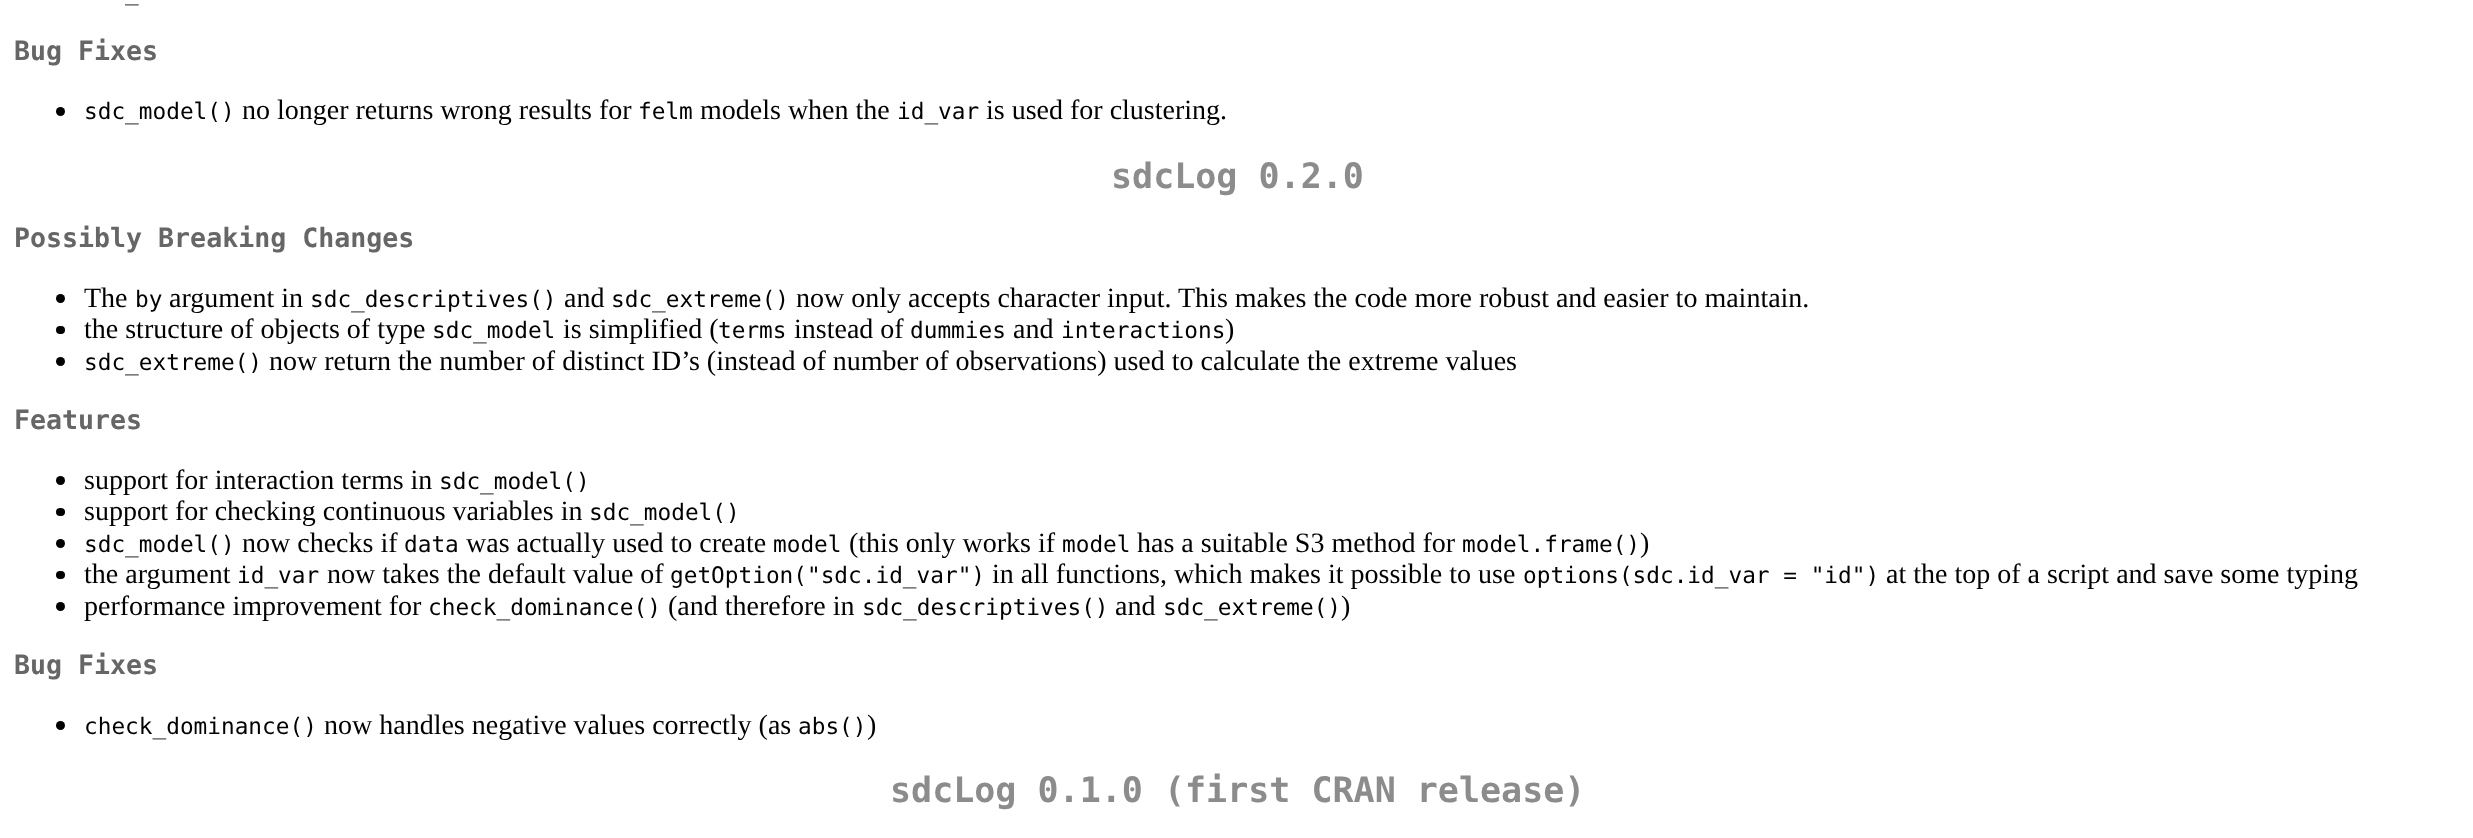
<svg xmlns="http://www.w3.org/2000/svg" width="2473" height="838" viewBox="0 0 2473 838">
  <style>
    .t1 { font: 22.75px DejaVu Sans Mono; fill: #000; }
    .t2 { font: bold 26.6px DejaVu Sans Mono; fill: #666; }
    .t3 { font: 28px Liberation Serif; fill: #000; }
    .t4 { font: bold 35px DejaVu Sans Mono; fill: #8c8c8c; }
  </style>
  <rect width="100%" height="100%" fill="#fff"/>
  <text x="125" y="0" class="t1">_</text>
  <text x="14" y="60" class="t2">Bug Fixes</text>
  <circle cx="60.5" cy="111.5" r="4.5" fill="#000"/>
  <text x="84" y="119" class="t1">sdc_model()</text>
  <text x="242" y="119" class="t3">no longer returns wrong results for</text>
  <text x="638" y="119" class="t1">felm</text>
  <text x="700" y="119" class="t3">models when the</text>
  <text x="897" y="119" class="t1">id_var</text>
  <text x="986" y="119" class="t3">is used for clustering.</text>
  <text x="1111" y="188" class="t4">sdcLog 0.2.0</text>
  <text x="14" y="247" class="t2">Possibly Breaking Changes</text>
  <circle cx="60.5" cy="298.5" r="4.5" fill="#000"/>
  <text x="84" y="307" class="t3">The</text>
  <text x="135" y="307" class="t1">by</text>
  <text x="169" y="307" class="t3">argument in</text>
  <text x="310" y="307" class="t1">sdc_descriptives()</text>
  <text x="564" y="307" class="t3">and</text>
  <text x="611" y="307" class="t1">sdc_extreme()</text>
  <text x="796" y="307" class="t3">now only accepts character input. This makes the code more robust and easier to maintain.</text>
  <rect x="56" y="326" width="9" height="8" rx="4" fill="#000"/>
  <text x="84" y="338" class="t3">the structure of objects of type</text>
  <text x="432" y="338" class="t1">sdc_model</text>
  <text x="563" y="338" class="t3">is simplified (</text>
  <text x="718" y="338" class="t1">terms</text>
  <text x="794" y="338" class="t3">instead of</text>
  <text x="910" y="338" class="t1">dummies</text>
  <text x="1013" y="338" class="t3">and</text>
  <text x="1061" y="338" class="t1">interactions</text>
  <text x="1225" y="338" class="t3">)</text>
  <circle cx="60.5" cy="361.5" r="4.5" fill="#000"/>
  <text x="84" y="370" class="t1">sdc_extreme()</text>
  <text x="269" y="370" class="t3">now return the number of distinct ID’s (instead of number of observations) used to calculate the extreme values</text>
  <text x="14" y="429" class="t2">Features</text>
  <circle cx="60.5" cy="480.5" r="4.5" fill="#000"/>
  <text x="84" y="489" class="t3">support for interaction terms in</text>
  <text x="439" y="489" class="t1">sdc_model()</text>
  <rect x="56" y="508" width="9" height="8" rx="4" fill="#000"/>
  <text x="84" y="520" class="t3">support for checking continuous variables in</text>
  <text x="589" y="520" class="t1">sdc_model()</text>
  <circle cx="60.5" cy="543.5" r="4.5" fill="#000"/>
  <text x="84" y="552" class="t1">sdc_model()</text>
  <text x="242" y="552" class="t3">now checks if</text>
  <text x="404" y="552" class="t1">data</text>
  <text x="466" y="552" class="t3">was actually used to create</text>
  <text x="773" y="552" class="t1">model</text>
  <text x="849" y="552" class="t3">(this only works if</text>
  <text x="1062" y="552" class="t1">model</text>
  <text x="1137" y="552" class="t3">has a suitable S3 method for</text>
  <text x="1462" y="552" class="t1">model.frame()</text>
  <text x="1640" y="552" class="t3">)</text>
  <rect x="56" y="571" width="9" height="8" rx="4" fill="#000"/>
  <text x="84" y="583" class="t3">the argument</text>
  <text x="237" y="583" class="t1">id_var</text>
  <text x="327" y="583" class="t3">now takes the default value of</text>
  <text x="670" y="583" class="t1">getOption("sdc.id_var")</text>
  <text x="992" y="583" class="t3">in all functions, which makes it possible to use</text>
  <text x="1523" y="583" class="t1">options(sdc.id_var = "id")</text>
  <text x="1886" y="583" class="t3">at the top of a script and save some typing</text>
  <circle cx="60.5" cy="606.5" r="4.5" fill="#000"/>
  <text x="84" y="615" class="t3">performance improvement for</text>
  <text x="428" y="615" class="t1">check_dominance()</text>
  <text x="668" y="615" class="t3">(and therefore in</text>
  <text x="862" y="615" class="t1">sdc_descriptives()</text>
  <text x="1115" y="615" class="t3">and</text>
  <text x="1163" y="615" class="t1">sdc_extreme()</text>
  <text x="1341" y="615" class="t3">)</text>
  <text x="14" y="674" class="t2">Bug Fixes</text>
  <circle cx="60.5" cy="725.5" r="4.5" fill="#000"/>
  <text x="84" y="734" class="t1">check_dominance()</text>
  <text x="324" y="734" class="t3">now handles negative values correctly (as</text>
  <text x="798" y="734" class="t1">abs()</text>
  <text x="867" y="734" class="t3">)</text>
  <text x="890" y="802" class="t4">sdcLog 0.1.0 (first CRAN release)</text>
</svg>
